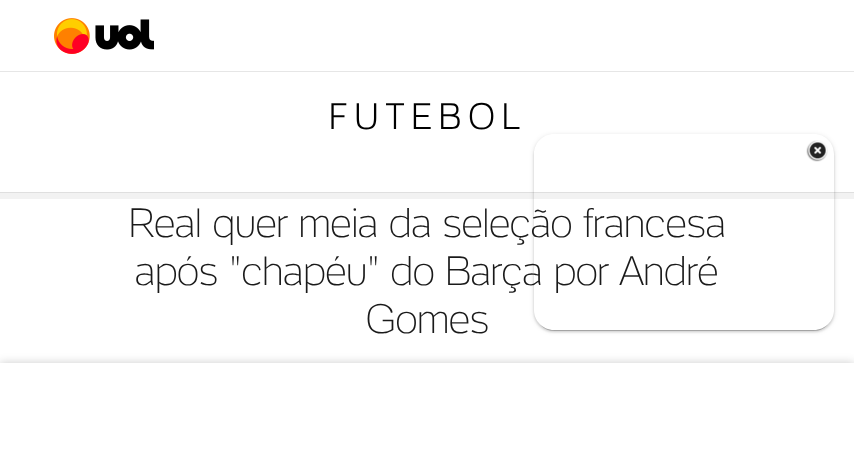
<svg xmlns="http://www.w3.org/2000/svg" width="854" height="463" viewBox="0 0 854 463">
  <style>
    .t1 { font: 300 36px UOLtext; letter-spacing: 5.5px; fill: #000; }
    .t2 { font: 100 40px UOLtext; fill: #1a1a1a; }
  </style>
  <defs>
    <clipPath id="clip1"><path d="M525 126H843V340H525ZM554 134H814C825 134 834 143 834 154V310C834 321 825 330 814 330H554C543 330 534 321 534 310V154C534 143 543 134 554 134Z" clip-rule="evenodd"/></clipPath>
    <clipPath id="clip2"><path d="M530 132H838V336H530ZM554 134H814C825 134 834 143 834 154V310C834 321 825 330 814 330H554C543 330 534 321 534 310V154C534 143 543 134 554 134Z" clip-rule="evenodd"/></clipPath>
    <clipPath id="clip3"><path d="M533 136H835V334H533ZM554 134H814C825 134 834 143 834 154V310C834 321 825 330 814 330H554C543 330 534 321 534 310V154C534 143 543 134 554 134Z" clip-rule="evenodd"/></clipPath>
  </defs>
  <rect width="100%" height="100%" fill="#fff"/>
  <rect x="0" y="71" width="854" height="1" fill="#e6e6e6"/>
  <image x="54" y="18" width="100" height="36" href="images/1.png"/>
  <text x="328" y="129" class="t1">FUTEBOL</text>
  <rect x="0" y="193" width="854" height="6" fill="#f2f2f2"/>
  <rect x="0" y="192" width="854" height="1" fill="#dfdfdf"/>
  <g clip-path="url(#clip1)">
    <rect x="534" y="135" width="300" height="196" rx="20" fill="#0000001f" filter="blur(2.5px)"/>
  </g>
  <g clip-path="url(#clip2)">
    <rect x="534" y="136" width="300" height="196" rx="20" fill="#00000024" filter="blur(1px)"/>
  </g>
  <g clip-path="url(#clip3)">
    <rect x="536" y="139" width="296" height="192" rx="18" fill="#00000033" filter="blur(0.5px)"/>
  </g>
  <image x="806" y="140" width="22" height="22" href="images/2.png"/>
  <text x="129" y="237" class="t2">Real quer meia da seleção francesa</text>
  <text x="135" y="285" class="t2">após "chapéu" do Barça por André</text>
  <text x="366" y="333" class="t2">Gomes</text>
  <rect x="0" y="363" width="854" height="100" fill="#00000033" filter="blur(5px)"/>
  <rect x="0" y="363" width="854" height="100" fill="#fff"/>
</svg>
